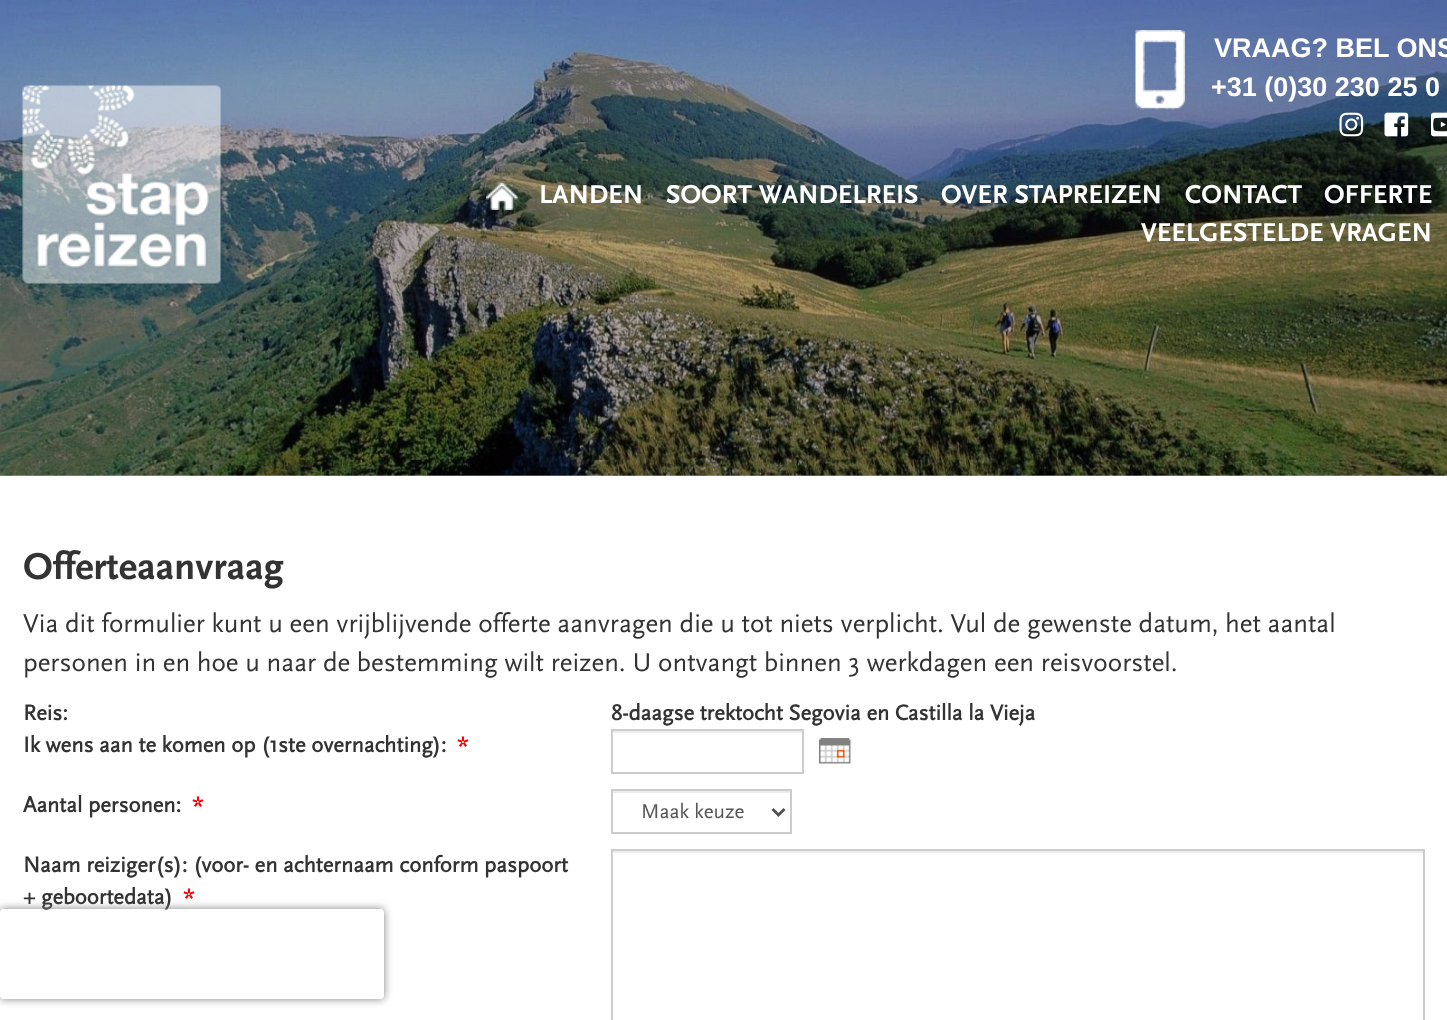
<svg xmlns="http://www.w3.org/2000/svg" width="1447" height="1020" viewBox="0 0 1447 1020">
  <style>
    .t1 { font: bold 27px Liberation Sans; fill: #fff; }
    .t2 { font: bold 27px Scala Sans; fill: #fff; }
    .t3 { font: bold 39px Scala Sans; fill: #333; }
    .t4 { font: 27px Scala Sans; fill: #333; }
    .t5 { font: bold 22.5px 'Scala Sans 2'; fill: #333; }
    .t6 { font: bold 22.5px 'Scala Sans 2'; fill: #f00; }
    .t7 { font: 21px Scala Sans; fill: #555; }
  </style>
  <defs>
    <clipPath id="clip1"><path d="M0 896H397V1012H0ZM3 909H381C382.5 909 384 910.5 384 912V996C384 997.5 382.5 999 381 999H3C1.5 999 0 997.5 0 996V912C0 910.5 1.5 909 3 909Z" clip-rule="evenodd"/></clipPath>
  </defs>
  <rect width="100%" height="100%" fill="#fff"/>
  <rect x="0" y="475" width="1447" height="1" fill="#b3b3b3"/>
  <image x="0" y="0" width="1447" height="476" href="images/1.png"/>
  <image x="1135" y="30" width="50" height="80" href="images/2.png"/>
  <text x="1214" y="57" class="t1">VRAAG? BEL ONS</text>
  <text x="1211" y="96" class="t1">+31 (0)30 230 25 0</text>
  <image x="1339" y="112" width="25" height="25" href="images/3.png"/>
  <image x="1384" y="112" width="25" height="25" href="images/4.png"/>
  <image x="1431" y="112" width="16" height="25" href="images/5.png"/>
  <image x="22" y="85" width="199" height="199" href="images/6.png"/>
  <image x="486" y="183" width="32" height="27" href="images/7.png"/>
  <text x="539" y="203" class="t2">LANDEN</text>
  <text x="666" y="203" class="t2">SOORT WANDELREIS</text>
  <text x="941" y="203" class="t2">OVER STAPREIZEN</text>
  <text x="1185" y="203" class="t2">CONTACT</text>
  <text x="1324" y="203" class="t2">OFFERTE</text>
  <text x="1141" y="241" class="t2">VEELGESTELDE VRAGEN</text>
  <text x="23" y="579" class="t3">Offerteaanvraag</text>
  <text x="23" y="632" class="t4">Via dit formulier kunt u een vrijblijvende offerte aanvragen die u tot niets verplicht. Vul de gewenste datum, het aantal</text>
  <text x="23" y="671" class="t4">personen in en hoe u naar de bestemming wilt reizen. U ontvangt binnen 3 werkdagen een reisvoorstel.</text>
  <text x="23" y="720" class="t5">Reis:</text>
  <text x="611" y="720" class="t5">8-daagse trektocht Segovia en Castilla la Vieja</text>
  <text x="23" y="752" class="t5">Ik wens aan te komen op (1ste overnachting):</text>
  <text x="457" y="752" class="t6">*</text>
  <rect x="612" y="731" width="191" height="2" fill="#ececec"/>
  <rect x="612" y="730" width="191" height="43" fill="none" stroke="#ccc" stroke-width="2"/>
  <image x="819" y="738" width="32" height="26" href="images/8.png"/>
  <text x="23" y="812" class="t5">Aantal personen:</text>
  <text x="192" y="812" class="t6">*</text>
  <rect x="612" y="791" width="179" height="2" fill="#ececec"/>
  <rect x="612" y="790" width="179" height="43" fill="none" stroke="#ccc" stroke-width="2"/>
  <path d="M772.5 809L778.5 815L784.5 809" fill="none" stroke="#555" stroke-width="3"/>
  <text x="641" y="818" class="t7">Maak keuze</text>
  <text x="23" y="872" class="t5">Naam reiziger(s): (voor- en achternaam conform paspoort</text>
  <text x="23" y="904" class="t5">+ geboortedata)</text>
  <text x="183" y="904" class="t6">*</text>
  <rect x="612" y="851" width="812" height="2" fill="#ececec"/>
  <rect x="612" y="850" width="812" height="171" fill="none" stroke="#ccc" stroke-width="2"/>
  <g clip-path="url(#clip1)">
    <rect x="0" y="909" width="384" height="90" rx="3" fill="#808080" filter="blur(4px)"/>
  </g>
</svg>
